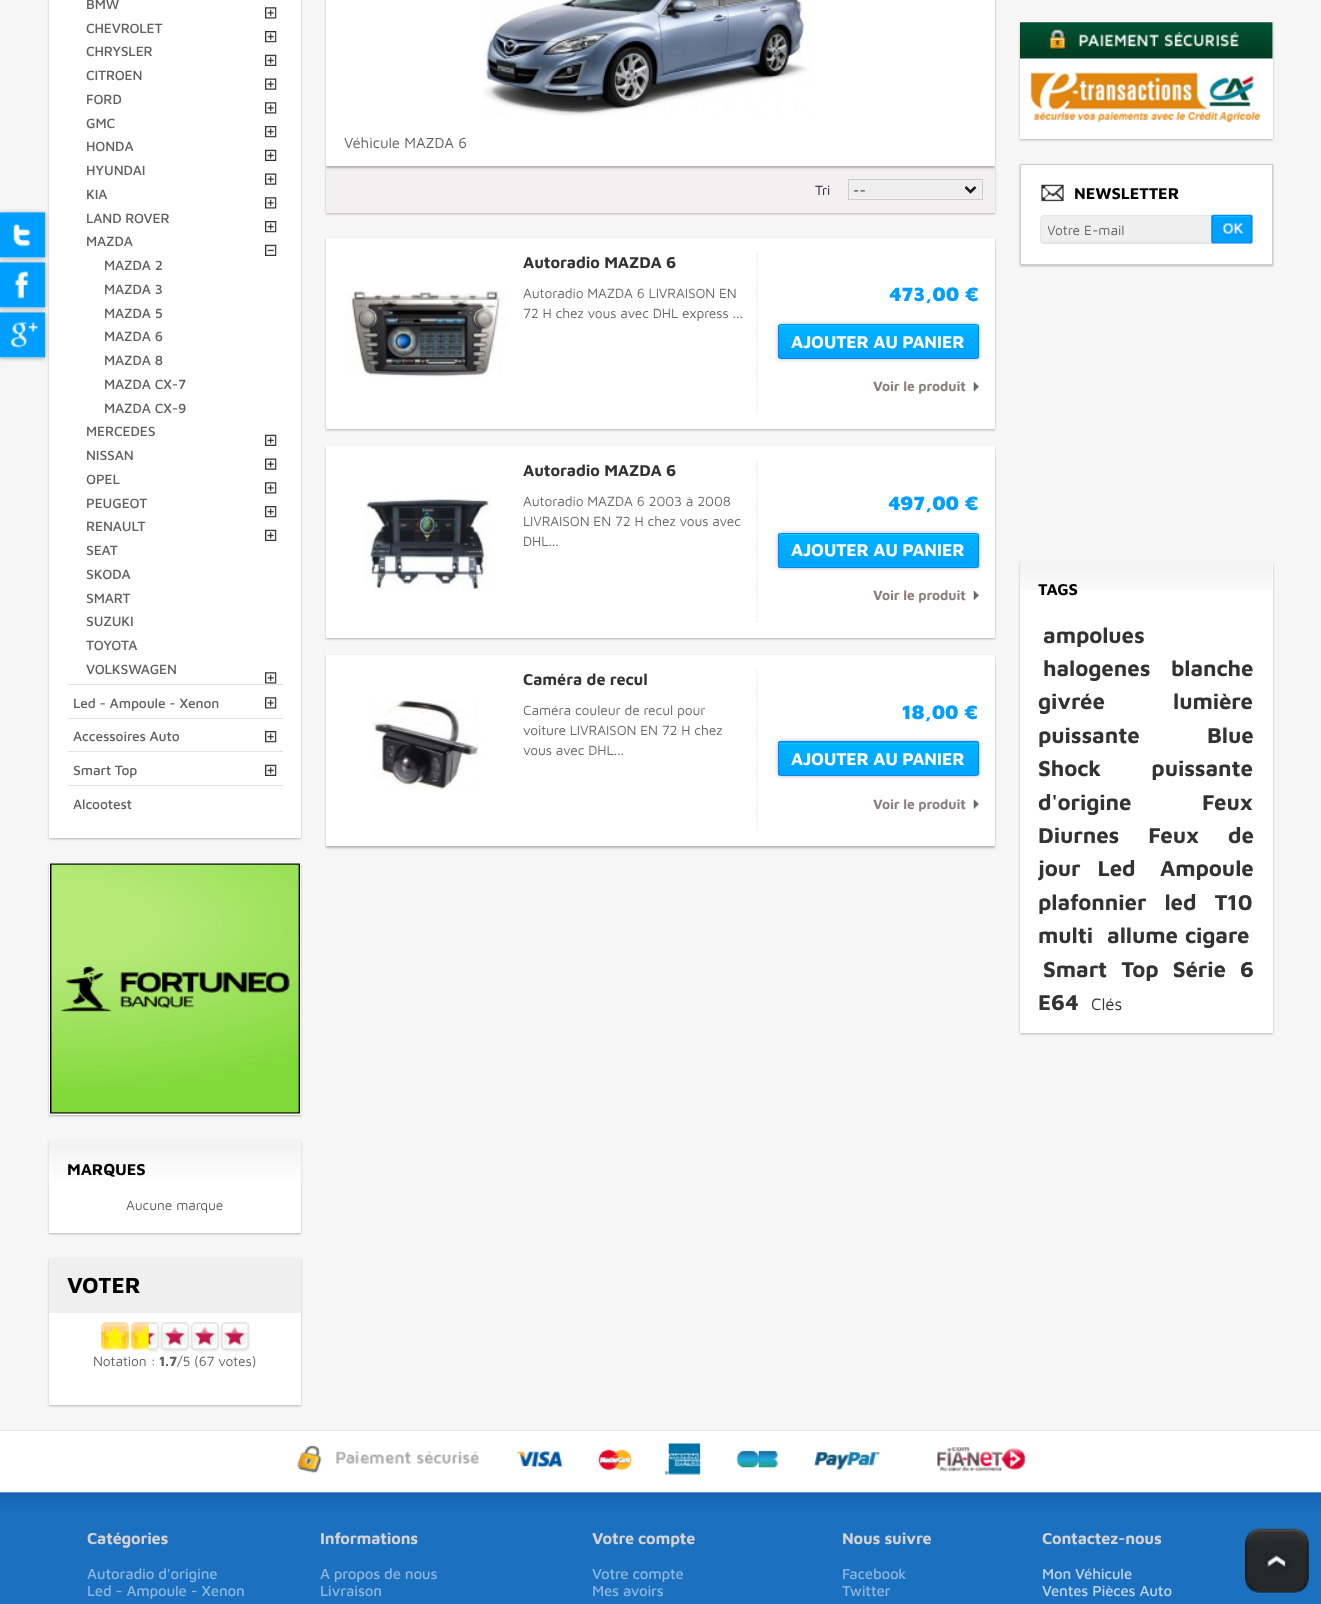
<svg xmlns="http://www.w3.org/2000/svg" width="1321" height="1604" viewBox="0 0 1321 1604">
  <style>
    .t1 { font: 500 13.75px Maven Pro; letter-spacing: -0.1px; fill: #606060; }
    .t2 { font: bold 16.25px Maven Pro; letter-spacing: -0.1px; fill: #000; }
    .t3 { font: 13.75px Maven Pro; letter-spacing: -0.1px; fill: #606060; }
    .t4 { font: bold 22.5px Maven Pro; letter-spacing: -0.1px; fill: #000; }
    .t5 { font: bold 13.75px Maven Pro; letter-spacing: -0.1px; fill: #606060; }
    .t6 { font: 15px Maven Pro; letter-spacing: -0.1px; fill: #606060; }
    .t7 { font: 13.75px Maven Pro; letter-spacing: -0.1px; fill: #211922; }
    .t8 { font: 13.75px Maven Pro; fill: #211922; }
    .t9 { font: bold 16.25px Maven Pro; letter-spacing: -0.1px; fill: #333; }
    .t10 { font: 13.75px Maven Pro; letter-spacing: -0.1px; fill: #666; }
    .t11 { font: 900 20px Maven Pro; letter-spacing: -0.1px; fill: #009fff; }
    .t12 { font: bold 17.5px Maven Pro; letter-spacing: -0.2px; fill: #fff; }
    .t13 { font: bold 13.75px Maven Pro; letter-spacing: -0.1px; fill: #8c7e7e; }
    .t14 { font: 13.75px Maven Pro; fill: #606060; }
    .t15 { font: bold 22.25px Maven Pro; letter-spacing: -0.1px; fill: #333; }
    .t16 { font: 17px Maven Pro; letter-spacing: -0.1px; fill: #333; }
    .t17 { font: bold 16.25px Maven Pro; letter-spacing: -0.2px; fill: #d2d2d2; }
    .t18 { font: 500 15px Maven Pro; letter-spacing: -0.2px; fill: #8bb6de; }
    .t19 { font: 500 15px Maven Pro; letter-spacing: -0.2px; fill: #bbd4ec; }
  </style>
  <defs>
    <clipPath id="clip1"><rect x="778" y="324" width="201" height="35" rx="2.5"/></clipPath>
    <linearGradient id="g1" gradientUnits="userSpaceOnUse" x1="779" y1="325" x2="779" y2="358"><stop offset="0.05" stop-color="#00b3ff"/><stop offset="1" stop-color="#00a2ff"/></linearGradient>
    <linearGradient id="g2" gradientUnits="userSpaceOnUse" x1="779" y1="534" x2="779" y2="566"><stop offset="0.05" stop-color="#00b3ff"/><stop offset="1" stop-color="#00a2ff"/></linearGradient>
    <clipPath id="clip2"><rect x="778" y="533" width="201" height="35" rx="2.5"/></clipPath>
    <linearGradient id="g3" gradientUnits="userSpaceOnUse" x1="779" y1="566" x2="779" y2="599"><stop offset="0.05" stop-color="#00b3ff"/><stop offset="1" stop-color="#00a2ff"/></linearGradient>
    <clipPath id="clip3"><rect x="778" y="741" width="201" height="35" rx="2.5"/></clipPath>
    <linearGradient id="g4" gradientUnits="userSpaceOnUse" x1="779" y1="710" x2="779" y2="743"><stop offset="0.05" stop-color="#00b3ff"/><stop offset="1" stop-color="#00a2ff"/></linearGradient>
    <linearGradient id="g5" gradientUnits="userSpaceOnUse" x1="779" y1="743" x2="779" y2="775"><stop offset="0.05" stop-color="#00b3ff"/><stop offset="1" stop-color="#00a2ff"/></linearGradient>
    <clipPath id="clip4"><rect x="1048" y="221" width="157" height="17"/></clipPath>
  </defs>
  <rect width="100%" height="100%" fill="#f6f6f6"/>
  <rect x="49" y="-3" width="252" height="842" fill="#2219194d" filter="blur(1px)"/>
  <rect x="49" y="0" width="252" height="838" fill="#fff"/>
  <rect x="0" y="213" width="45" height="45" fill="#00100d66" filter="blur(2px)"/>
  <rect x="0" y="257" width="45" height="1" fill="#fff"/>
  <image x="0" y="212" width="45" height="46" href="images/1.png"/>
  <rect x="0" y="263" width="45" height="45" fill="#00100d66" filter="blur(2px)"/>
  <rect x="0" y="307" width="45" height="1" fill="#fff"/>
  <image x="0" y="262" width="45" height="46" href="images/2.png"/>
  <rect x="0" y="313" width="45" height="45" fill="#00100d66" filter="blur(2px)"/>
  <rect x="0" y="357" width="45" height="1" fill="#fff"/>
  <image x="0" y="312" width="45" height="46" href="images/3.png"/>
  <rect x="68" y="684" width="215" height="1" fill="#e2e2e3"/>
  <text x="86" y="9" class="t1">BMW</text>
  <image x="265" y="7" width="12" height="12" href="images/4.png"/>
  <text x="86" y="33" class="t1">CHEVROLET</text>
  <image x="265" y="31" width="12" height="12" href="images/5.png"/>
  <text x="86" y="56" class="t1">CHRYSLER</text>
  <image x="265" y="54" width="12" height="12" href="images/6.png"/>
  <text x="86" y="80" class="t1">CITROEN</text>
  <image x="265" y="78" width="12" height="12" href="images/7.png"/>
  <text x="86" y="104" class="t1">FORD</text>
  <image x="265" y="102" width="12" height="12" href="images/4.png"/>
  <text x="86" y="128" class="t1">GMC</text>
  <image x="265" y="126" width="12" height="12" href="images/5.png"/>
  <text x="86" y="151" class="t1">HONDA</text>
  <image x="265" y="149" width="12" height="12" href="images/6.png"/>
  <text x="86" y="175" class="t1">HYUNDAI</text>
  <image x="265" y="173" width="12" height="12" href="images/7.png"/>
  <text x="86" y="199" class="t1">KIA</text>
  <image x="265" y="197" width="12" height="12" href="images/4.png"/>
  <text x="86" y="223" class="t1">LAND ROVER</text>
  <image x="265" y="221" width="12" height="12" href="images/5.png"/>
  <text x="86" y="246" class="t1">MAZDA</text>
  <image x="265" y="244" width="12" height="12" href="images/8.png"/>
  <text x="104" y="270" class="t1">MAZDA 2</text>
  <text x="104" y="294" class="t1">MAZDA 3</text>
  <text x="104" y="318" class="t1">MAZDA 5</text>
  <text x="104" y="341" class="t1">MAZDA 6</text>
  <text x="104" y="365" class="t1">MAZDA 8</text>
  <text x="104" y="389" class="t1">MAZDA CX-7</text>
  <text x="104" y="413" class="t1">MAZDA CX-9</text>
  <text x="86" y="436" class="t1">MERCEDES</text>
  <image x="265" y="434" width="12" height="12" href="images/6.png"/>
  <text x="86" y="460" class="t1">NISSAN</text>
  <image x="265" y="458" width="12" height="12" href="images/7.png"/>
  <text x="86" y="484" class="t1">OPEL</text>
  <image x="265" y="482" width="12" height="12" href="images/4.png"/>
  <text x="86" y="508" class="t1">PEUGEOT</text>
  <image x="265" y="506" width="12" height="12" href="images/5.png"/>
  <text x="86" y="531" class="t1">RENAULT</text>
  <image x="265" y="529" width="12" height="12" href="images/6.png"/>
  <text x="86" y="555" class="t1">SEAT</text>
  <text x="86" y="579" class="t1">SKODA</text>
  <text x="86" y="603" class="t1">SMART</text>
  <text x="86" y="626" class="t1">SUZUKI</text>
  <text x="86" y="650" class="t1">TOYOTA</text>
  <text x="86" y="674" class="t1">VOLKSWAGEN</text>
  <image x="265" y="672" width="12" height="12" href="images/4.png"/>
  <rect x="68" y="718" width="215" height="1" fill="#e2e2e3"/>
  <text x="73" y="708" class="t1">Led - Ampoule - Xenon</text>
  <image x="265" y="697" width="12" height="12" href="images/4.png"/>
  <rect x="68" y="751" width="215" height="1" fill="#e2e2e3"/>
  <text x="73" y="741" class="t1">Accessoires Auto</text>
  <image x="265" y="731" width="12" height="12" href="images/5.png"/>
  <rect x="68" y="785" width="215" height="1" fill="#e2e2e3"/>
  <text x="73" y="775" class="t1">Smart Top</text>
  <image x="265" y="764" width="12" height="12" href="images/6.png"/>
  <text x="73" y="809" class="t1">Alcootest</text>
  <rect x="49" y="864" width="252" height="252" fill="#2219194d" filter="blur(1px)"/>
  <rect x="49" y="863" width="252" height="252" fill="#fff"/>
  <image x="50" y="863" width="250" height="251" href="images/9.png"/>
  <rect x="49" y="1141" width="252" height="93" fill="#2219194d" filter="blur(1px)"/>
  <rect x="49" y="1184" width="252" height="49" fill="#fff"/>
  <image x="48" y="1140" width="254" height="45" href="images/10.png"/>
  <text x="67" y="1175" class="t2">MARQUES</text>
  <text x="126" y="1210" class="t3">Aucune marque</text>
  <rect x="49" y="1259" width="252" height="147" fill="#2219194d" filter="blur(1px)"/>
  <rect x="49" y="1313" width="252" height="92" fill="#fff"/>
  <rect x="49" y="1258" width="252" height="55" fill="#efefef"/>
  <text x="67" y="1293" class="t4">VOTER</text>
  <image x="102" y="1322" width="148" height="30" href="images/11.png"/>
  <image x="100" y="1322" width="49" height="30" href="images/12.png"/>
  <text x="93" y="1366" class="t3">Notation :</text>
  <text x="159" y="1366" class="t5">1.7</text>
  <text x="177" y="1366" class="t3">/5 (67 votes)</text>
  <rect x="326" y="168" width="669" height="46" fill="#2219194d" filter="blur(1px)"/>
  <rect x="326" y="166" width="669" height="47" fill="#f2f0f0"/>
  <rect x="326" y="-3" width="669" height="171" fill="#2219194d" filter="blur(1px)"/>
  <rect x="326" y="0" width="669" height="166" fill="#fff"/>
  <image x="483" y="0" width="328" height="116" href="images/13.png"/>
  <text x="344" y="148" class="t6">Véhicule MAZDA 6</text>
  <text x="815" y="195" class="t7">Tri</text>
  <rect x="848.5" y="179.5" width="134" height="20" fill="#efefef" stroke="#ccc"/>
  <path d="M965.5 187L970.5 192L975.5 187" fill="none" stroke="#211922" stroke-width="2.5"/>
  <text x="853" y="195" class="t8">--</text>
  <rect x="326" y="239" width="669" height="191" fill="#2219194d" filter="blur(1px)"/>
  <rect x="326" y="238" width="669" height="191" fill="#fff"/>
  <path d="M757 252.5V414" fill="none" stroke="#e2e2e3" stroke-width="1.2" stroke-dasharray="1.25 1.25"/>
  <text x="523" y="268" class="t9">Autoradio MAZDA 6</text>
  <image x="345" y="290" width="160" height="87" href="images/14.png"/>
  <text x="523" y="298" class="t10">Autoradio MAZDA 6 LIVRAISON EN</text>
  <text x="523" y="318" class="t10">72 H chez vous avec DHL express ...</text>
  <text x="889" y="301" class="t11">473,00 €</text>
  <rect x="778" y="324" width="201" height="35" rx="2.5" fill="#00100d4d" filter="blur(2px)"/>
  <g clip-path="url(#clip1)">
    <rect x="778" y="325" width="201" height="33" fill="url(#g1)"/>
  </g>
  <path d="M780 326H976L978 327V328C978 327 978 325 977 325H780C779 325 779 327 779 328C779 327 779 326 780 326Z" fill="#0cf"/>
  <rect x="778.5" y="324.5" width="200" height="34" rx="2" fill="none" stroke="#0084ff"/>
  <text x="791" y="348" class="t12">AJOUTER AU PANIER</text>
  <image x="973" y="382" width="6" height="9" href="images/15.png"/>
  <text x="873" y="391" class="t13">Voir le produit</text>
  <rect x="326" y="448" width="669" height="191" fill="#2219194d" filter="blur(1px)"/>
  <rect x="326" y="446" width="669" height="192" fill="#fff"/>
  <path d="M757 461V622.5" fill="none" stroke="#e2e2e3" stroke-width="1.2" stroke-dasharray="1.25 1.25"/>
  <text x="523" y="476" class="t9">Autoradio MAZDA 6</text>
  <image x="365" y="495" width="126" height="96" href="images/16.png"/>
  <text x="523" y="506" class="t10">Autoradio MAZDA 6 2003 à 2008</text>
  <text x="523" y="526" class="t10">LIVRAISON EN 72 H chez vous avec</text>
  <text x="523" y="546" class="t10">DHL...</text>
  <text x="888" y="510" class="t11">497,00 €</text>
  <rect x="778" y="533" width="201" height="35" rx="2.5" fill="#00100d4d" filter="blur(2px)"/>
  <rect x="778" y="534" width="201" height="32" fill="url(#g2)"/>
  <g clip-path="url(#clip2)">
    <rect x="778" y="566" width="201" height="2" fill="url(#g3)"/>
  </g>
  <path d="M780 535H976C977 535 978 536 978 536C978 535 978 534 977 534H779V536Z" fill="#0cf"/>
  <rect x="778.5" y="533.5" width="200" height="34" rx="2" fill="none" stroke="#0084ff"/>
  <text x="791" y="556" class="t12">AJOUTER AU PANIER</text>
  <image x="973" y="591" width="6" height="9" href="images/17.png"/>
  <text x="873" y="600" class="t13">Voir le produit</text>
  <rect x="326" y="656" width="669" height="192" fill="#2219194d" filter="blur(1px)"/>
  <rect x="326" y="655" width="669" height="191" fill="#fff"/>
  <path d="M757 670V831" fill="none" stroke="#e2e2e3" stroke-width="1.2" stroke-dasharray="1.25 1.25"/>
  <text x="523" y="685" class="t9">Caméra de recul</text>
  <image x="371" y="700" width="110" height="91" href="images/18.png"/>
  <text x="523" y="715" class="t10">Caméra couleur de recul pour</text>
  <text x="523" y="735" class="t10">voiture LIVRAISON EN 72 H chez</text>
  <text x="523" y="755" class="t10">vous avec DHL...</text>
  <text x="902" y="719" class="t11">18,00 €</text>
  <rect x="778" y="741" width="201" height="35" rx="2.5" fill="#00100d4d" filter="blur(2px)"/>
  <g clip-path="url(#clip3)">
    <rect x="778" y="741" width="201" height="2" fill="url(#g4)"/>
  </g>
  <rect x="778" y="743" width="201" height="32" fill="url(#g5)"/>
  <path d="M780 744H976C977 744 978 744 978 745C978 744 978 743 977 743H779V745C779 744 779 744 780 744Z" fill="#0cf"/>
  <rect x="778.5" y="741.5" width="200" height="34" rx="2" fill="none" stroke="#0084ff"/>
  <text x="791" y="765" class="t12">AJOUTER AU PANIER</text>
  <image x="973" y="799" width="6" height="10" href="images/19.png"/>
  <text x="873" y="809" class="t13">Voir le produit</text>
  <rect x="1020" y="24" width="253" height="116" fill="#2219194d" filter="blur(1px)"/>
  <rect x="1020" y="23" width="253" height="116" fill="#fff"/>
  <image x="1020" y="22" width="253" height="101" href="images/20.png"/>
  <rect x="1020" y="165" width="253" height="101" fill="#2219194d" filter="blur(1px)"/>
  <rect x="1020.5" y="164.5" width="252" height="100" fill="#fff" stroke="#ccc"/>
  <image x="1041" y="184" width="23" height="18" href="images/21.png"/>
  <text x="1074" y="199" class="t2">NEWSLETTER</text>
  <path d="M1044 215H1211V244H1044C1042 244 1040 242 1040 240V219C1040 217 1042 215 1044 215Z" fill="#efefef"/>
  <path d="M1044 215H1211V244H1044C1042 244 1040 242 1040 240V219C1040 217 1042 215 1044 215ZM1044 216H1211V242H1044C1042 242 1041 241 1041 240V219C1041 217 1042 216 1044 216Z" fill="#e5e5e5" fill-rule="evenodd"/>
  <g clip-path="url(#clip4)">
    <text x="1047" y="235" class="t14">Votre E-mail</text>
  </g>
  <rect x="1211" y="215" width="42" height="29" fill="#efefef"/>
  <image x="1211" y="214" width="42" height="30" href="images/22.png"/>
  <rect x="1020" y="563" width="253" height="471" fill="#2219194d" filter="blur(1px)"/>
  <rect x="1020" y="561" width="253" height="472" fill="#fff"/>
  <image x="1020" y="561" width="253" height="29" href="images/23.png"/>
  <text x="1038" y="595" class="t2">TAGS</text>
  <text x="1043" y="643" class="t15">ampolues</text>
  <text x="1043" y="676" class="t15">halogenes</text>
  <text x="1171" y="676" class="t15">blanche</text>
  <text x="1038" y="709" class="t15">givrée</text>
  <text x="1173" y="709" class="t15">lumière</text>
  <text x="1038" y="743" class="t15">puissante</text>
  <text x="1207" y="743" class="t15">Blue</text>
  <text x="1038" y="776" word-spacing="44" class="t15">Shock puissante</text>
  <text x="1038" y="810" class="t15">d'origine</text>
  <text x="1202" y="810" class="t15">Feux</text>
  <text x="1038" y="843" word-spacing="23" class="t15">Diurnes Feux de</text>
  <text x="1038" y="876" word-spacing="11" class="t15">jour Led</text>
  <text x="1160" y="876" class="t15">Ampoule</text>
  <text x="1038" y="910" word-spacing="12" class="t15">plafonnier led T10</text>
  <text x="1038" y="943" class="t15">multi</text>
  <text x="1107" y="943" word-spacing="1" class="t15">allume cigare</text>
  <text x="1043" y="977" word-spacing="8" class="t15">Smart Top Série 6</text>
  <text x="1038" y="1010" class="t15">E64</text>
  <text x="1091" y="1010" class="t16">Clés</text>
  <rect x="0" y="1431" width="1321" height="60" fill="#fff"/>
  <rect x="0" y="1430" width="1321" height="1" fill="#e5e5e6"/>
  <image x="297" y="1443" width="728" height="32" href="images/24.png"/>
  <image x="0" y="1491" width="1321" height="113" href="images/25.png"/>
  <text x="87" y="1544" class="t17">Catégories</text>
  <text x="87" y="1579" class="t18">Autoradio d'origine</text>
  <text x="87" y="1596" class="t18">Led - Ampoule - Xenon</text>
  <text x="320" y="1544" class="t17">Informations</text>
  <text x="320" y="1579" class="t18">A propos de nous</text>
  <text x="320" y="1596" class="t18">Livraison</text>
  <text x="592" y="1544" class="t17">Votre compte</text>
  <text x="592" y="1579" class="t18">Votre compte</text>
  <text x="592" y="1596" class="t18">Mes avoirs</text>
  <text x="842" y="1544" class="t17">Nous suivre</text>
  <text x="842" y="1579" class="t18">Facebook</text>
  <text x="842" y="1596" class="t18">Twitter</text>
  <text x="1042" y="1544" class="t17">Contactez-nous</text>
  <text x="1042" y="1579" class="t19">Mon Véhicule</text>
  <text x="1042" y="1596" class="t19">Ventes Pièces Auto</text>
  <image x="1245" y="1528" width="64" height="65" href="images/26.png"/>
</svg>
